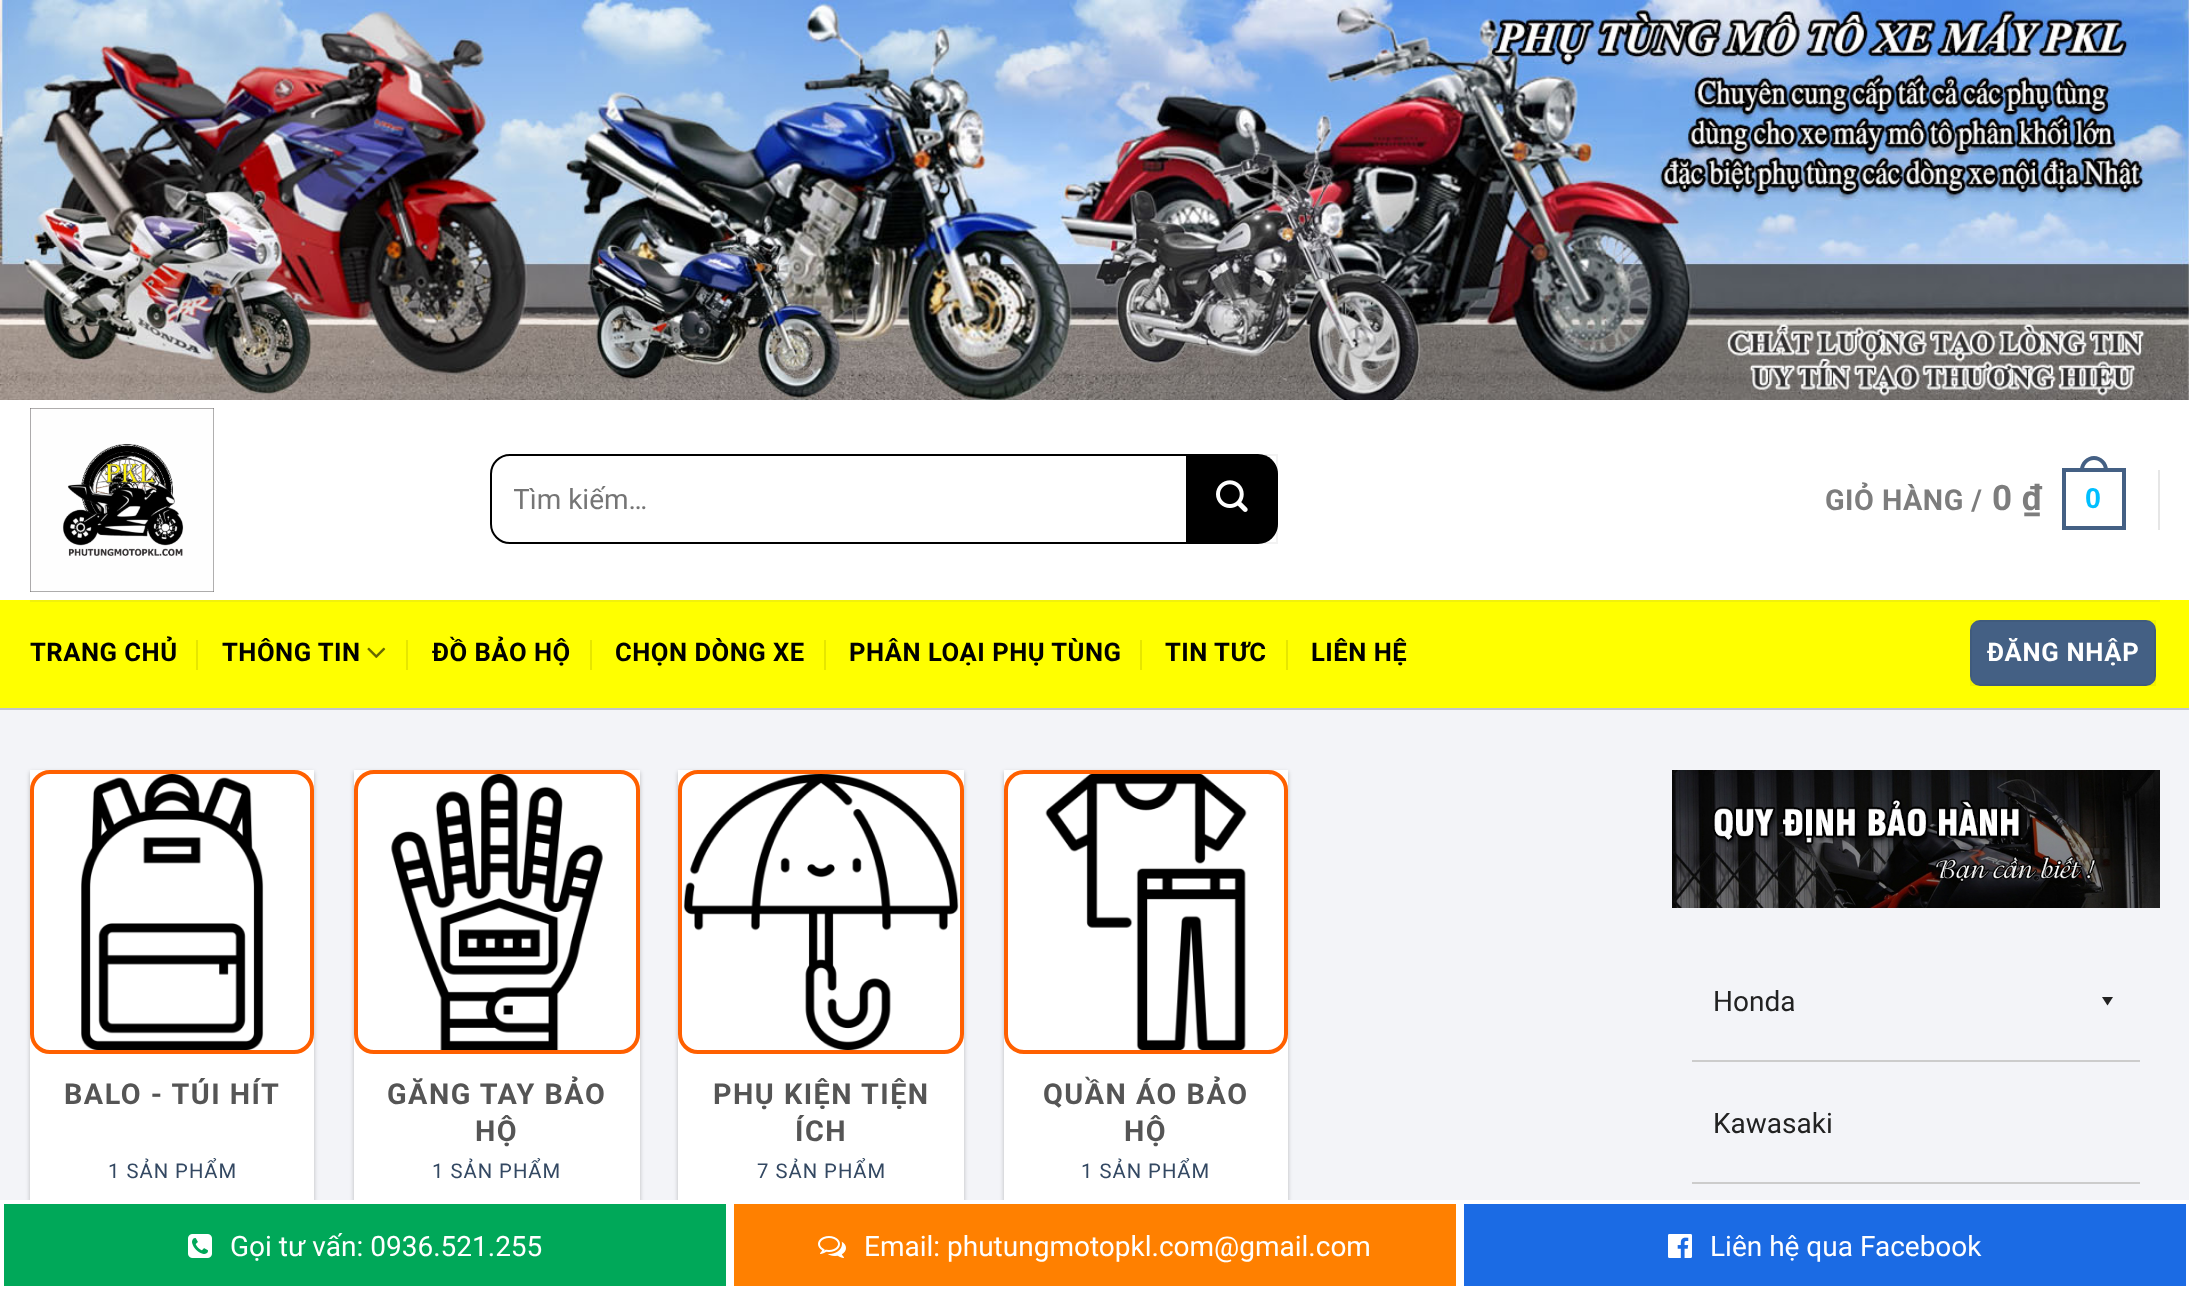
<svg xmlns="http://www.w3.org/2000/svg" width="2189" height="1289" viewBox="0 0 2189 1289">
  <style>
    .t1 { font: 28px Roboto; fill: #757575; }
    .t2 { font: bold 28.75px Roboto; letter-spacing: 0.5px; fill: #7d7d7d; }
    .t3 { font: bold 35px Roboto; letter-spacing: 0.5px; fill: #7d7d7d; }
    .t4 { font: bold 28.75px Liberation Sans; letter-spacing: 0.5px; fill: #00bfff; }
    .t5 { font: bold 25.6px Roboto; letter-spacing: 0.5px; fill: #000; }
    .t6 { font: bold 25.6px Roboto; letter-spacing: 0.75px; fill: #fff; }
    .t7 { font: bold 28.75px Roboto; letter-spacing: 1.5px; fill: #555; }
    .t8 { font: 20.25px Roboto; letter-spacing: 1px; fill: #334862; }
    .t9 { font: 28px Roboto; fill: #222; }
    .t10 { font: 28px Roboto; fill: #fff; }
  </style>
  <defs>
    <clipPath id="clip1"><rect x="514" y="484" width="642" height="32"/></clipPath>
  </defs>
  <rect width="100%" height="100%" fill="#fff"/>
  <image x="0" y="0" width="2189" height="400" href="images/1.png"/>
  <image x="30" y="408" width="184" height="184" href="images/2.png"/>
  <path d="M510 455H1187V543H510C499.5 543 491 534.5 491 524V474C491 463.5 499.5 455 510 455Z" fill="none" stroke="#000" stroke-width="2"/>
  <g clip-path="url(#clip1)">
    <text x="513" y="509" class="t1">Tìm kiếm…</text>
  </g>
  <path d="M1188 454H1258C1269 454 1278 463 1278 474V524C1278 535 1269 544 1258 544H1188Z" fill="#000"/>
  <rect x="1189" y="455" width="88" height="88" fill="none" stroke="#0000000d" stroke-width="2"/>
  <image x="1216" y="480" width="32" height="32" href="images/3.png"/>
  <text x="1825" y="510" class="t2">GIỎ HÀNG /</text>
  <text x="1992" y="510" class="t3">0 ₫</text>
  <rect x="2064" y="470" width="60" height="58" fill="none" stroke="#446084" stroke-width="4"/>
  <path d="M2094 456C2101.5 456 2108 462.5 2108 470V472H2080V470C2080 462.5 2086.5 456 2094 456ZM2094 460C2099.5 460 2104 464.5 2104 470V472H2084V470C2084 464.5 2088.5 460 2094 460Z" fill="#446084" fill-rule="evenodd"/>
  <text x="2085" y="508" class="t4">0</text>
  <rect x="2158" y="470" width="2" height="60" fill="#e6e6e6"/>
  <rect x="0" y="600" width="2189" height="108" fill="#ff0"/>
  <rect x="30" y="600" width="2130" height="2" fill="#f1f10c"/>
  <rect x="0" y="708" width="2189" height="2" fill="#c2c4cb"/>
  <text x="30" y="661" class="t5">TRANG CHỦ</text>
  <rect x="196" y="640" width="2" height="30" fill="#e6e600"/>
  <text x="222" y="661" class="t5">THÔNG TIN</text>
  <image x="367" y="647" width="19" height="11" href="images/4.png"/>
  <rect x="406" y="640" width="2" height="30" fill="#e6e600"/>
  <text x="432" y="661" class="t5">ĐỒ BẢO HỘ</text>
  <rect x="590" y="640" width="2" height="30" fill="#e6e600"/>
  <text x="615" y="661" class="t5">CHỌN DÒNG XE</text>
  <rect x="824" y="640" width="2" height="30" fill="#e6e600"/>
  <text x="849" y="661" class="t5">PHÂN LOẠI PHỤ TÙNG</text>
  <rect x="1140" y="640" width="2" height="30" fill="#e6e600"/>
  <text x="1165" y="661" class="t5">TIN TỨC</text>
  <rect x="1286" y="640" width="2" height="30" fill="#e6e600"/>
  <text x="1311" y="661" class="t5">LIÊN HỆ</text>
  <rect x="1970" y="620" width="186" height="66" rx="10" fill="#446084"/>
  <rect x="1971" y="621" width="184" height="64" fill="none" stroke="#0000000d" stroke-width="2"/>
  <text x="1987" y="661" class="t6">ĐĂNG NHẬP</text>
  <rect x="0" y="710" width="2189" height="490" fill="#f3f4f8"/>
  <rect x="30" y="772" width="284" height="456" fill="#0000003d" filter="blur(2px)"/>
  <rect x="30" y="770" width="284" height="430" fill="#fff"/>
  <rect x="32" y="772" width="280" height="280" rx="18" fill="none" stroke="#ff6000" stroke-width="4"/>
  <image x="81" y="774" width="183" height="276" href="images/5.png"/>
  <text x="64" y="1104" class="t7">BALO - TÚI HÍT</text>
  <text x="108" y="1178" class="t8">1 SẢN PHẨM</text>
  <rect x="354" y="772" width="286" height="456" fill="#0000003d" filter="blur(2px)"/>
  <rect x="354" y="770" width="286" height="430" fill="#fff"/>
  <rect x="356" y="772" width="282" height="280" rx="18" fill="none" stroke="#ff6000" stroke-width="4"/>
  <image x="391" y="774" width="212" height="276" href="images/6.png"/>
  <text x="387" y="1104" class="t7">GĂNG TAY BẢO</text>
  <text x="475" y="1141" class="t7">HỘ</text>
  <text x="432" y="1178" class="t8">1 SẢN PHẨM</text>
  <rect x="678" y="772" width="286" height="456" fill="#0000003d" filter="blur(2px)"/>
  <rect x="678" y="770" width="286" height="430" fill="#fff"/>
  <rect x="680" y="772" width="282" height="280" rx="18" fill="none" stroke="#ff6000" stroke-width="4"/>
  <image x="683" y="774" width="276" height="276" href="images/7.png"/>
  <text x="713" y="1104" class="t7">PHỤ KIỆN TIỆN</text>
  <text x="795" y="1141" class="t7">ÍCH</text>
  <text x="757" y="1178" class="t8">7 SẢN PHẨM</text>
  <rect x="1004" y="772" width="284" height="456" fill="#0000003d" filter="blur(2px)"/>
  <rect x="1004" y="770" width="284" height="430" fill="#fff"/>
  <rect x="1006" y="772" width="280" height="280" rx="18" fill="none" stroke="#ff6000" stroke-width="4"/>
  <image x="1045" y="774" width="202" height="276" href="images/8.png"/>
  <text x="1043" y="1104" class="t7">QUẦN ÁO BẢO</text>
  <text x="1124" y="1141" class="t7">HỘ</text>
  <text x="1081" y="1178" class="t8">1 SẢN PHẨM</text>
  <image x="1672" y="770" width="488" height="138" href="images/9.png"/>
  <text x="1713" y="1011" class="t9">Honda</text>
  <path d="M2113 997L2107.5 1005.5L2102 997Z" fill="#222"/>
  <rect x="1692" y="1060" width="448" height="2" fill="#ccc"/>
  <text x="1713" y="1133" class="t9">Kawasaki</text>
  <rect x="1692" y="1182" width="448" height="2" fill="#ccc"/>
  <rect x="2" y="1202" width="726" height="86" fill="#00a859" stroke="#fff" stroke-width="4"/>
  <image x="188" y="1234" width="24" height="24" href="images/10.png"/>
  <text x="230" y="1256" class="t10">Gọi tư vấn: 0936.521.255</text>
  <rect x="732" y="1202" width="726" height="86" fill="#ff8000" stroke="#fff" stroke-width="4"/>
  <image x="818" y="1236" width="28" height="22" href="images/11.png"/>
  <text x="864" y="1256" class="t10">Email: phutungmotopkl.com@gmail.com</text>
  <rect x="1464" y="1204" width="722" height="82" fill="#1b6be4"/>
  <image x="1668" y="1234" width="24" height="24" href="images/12.png"/>
  <text x="1710" y="1256" class="t10">Liên hệ qua Facebook</text>
</svg>
